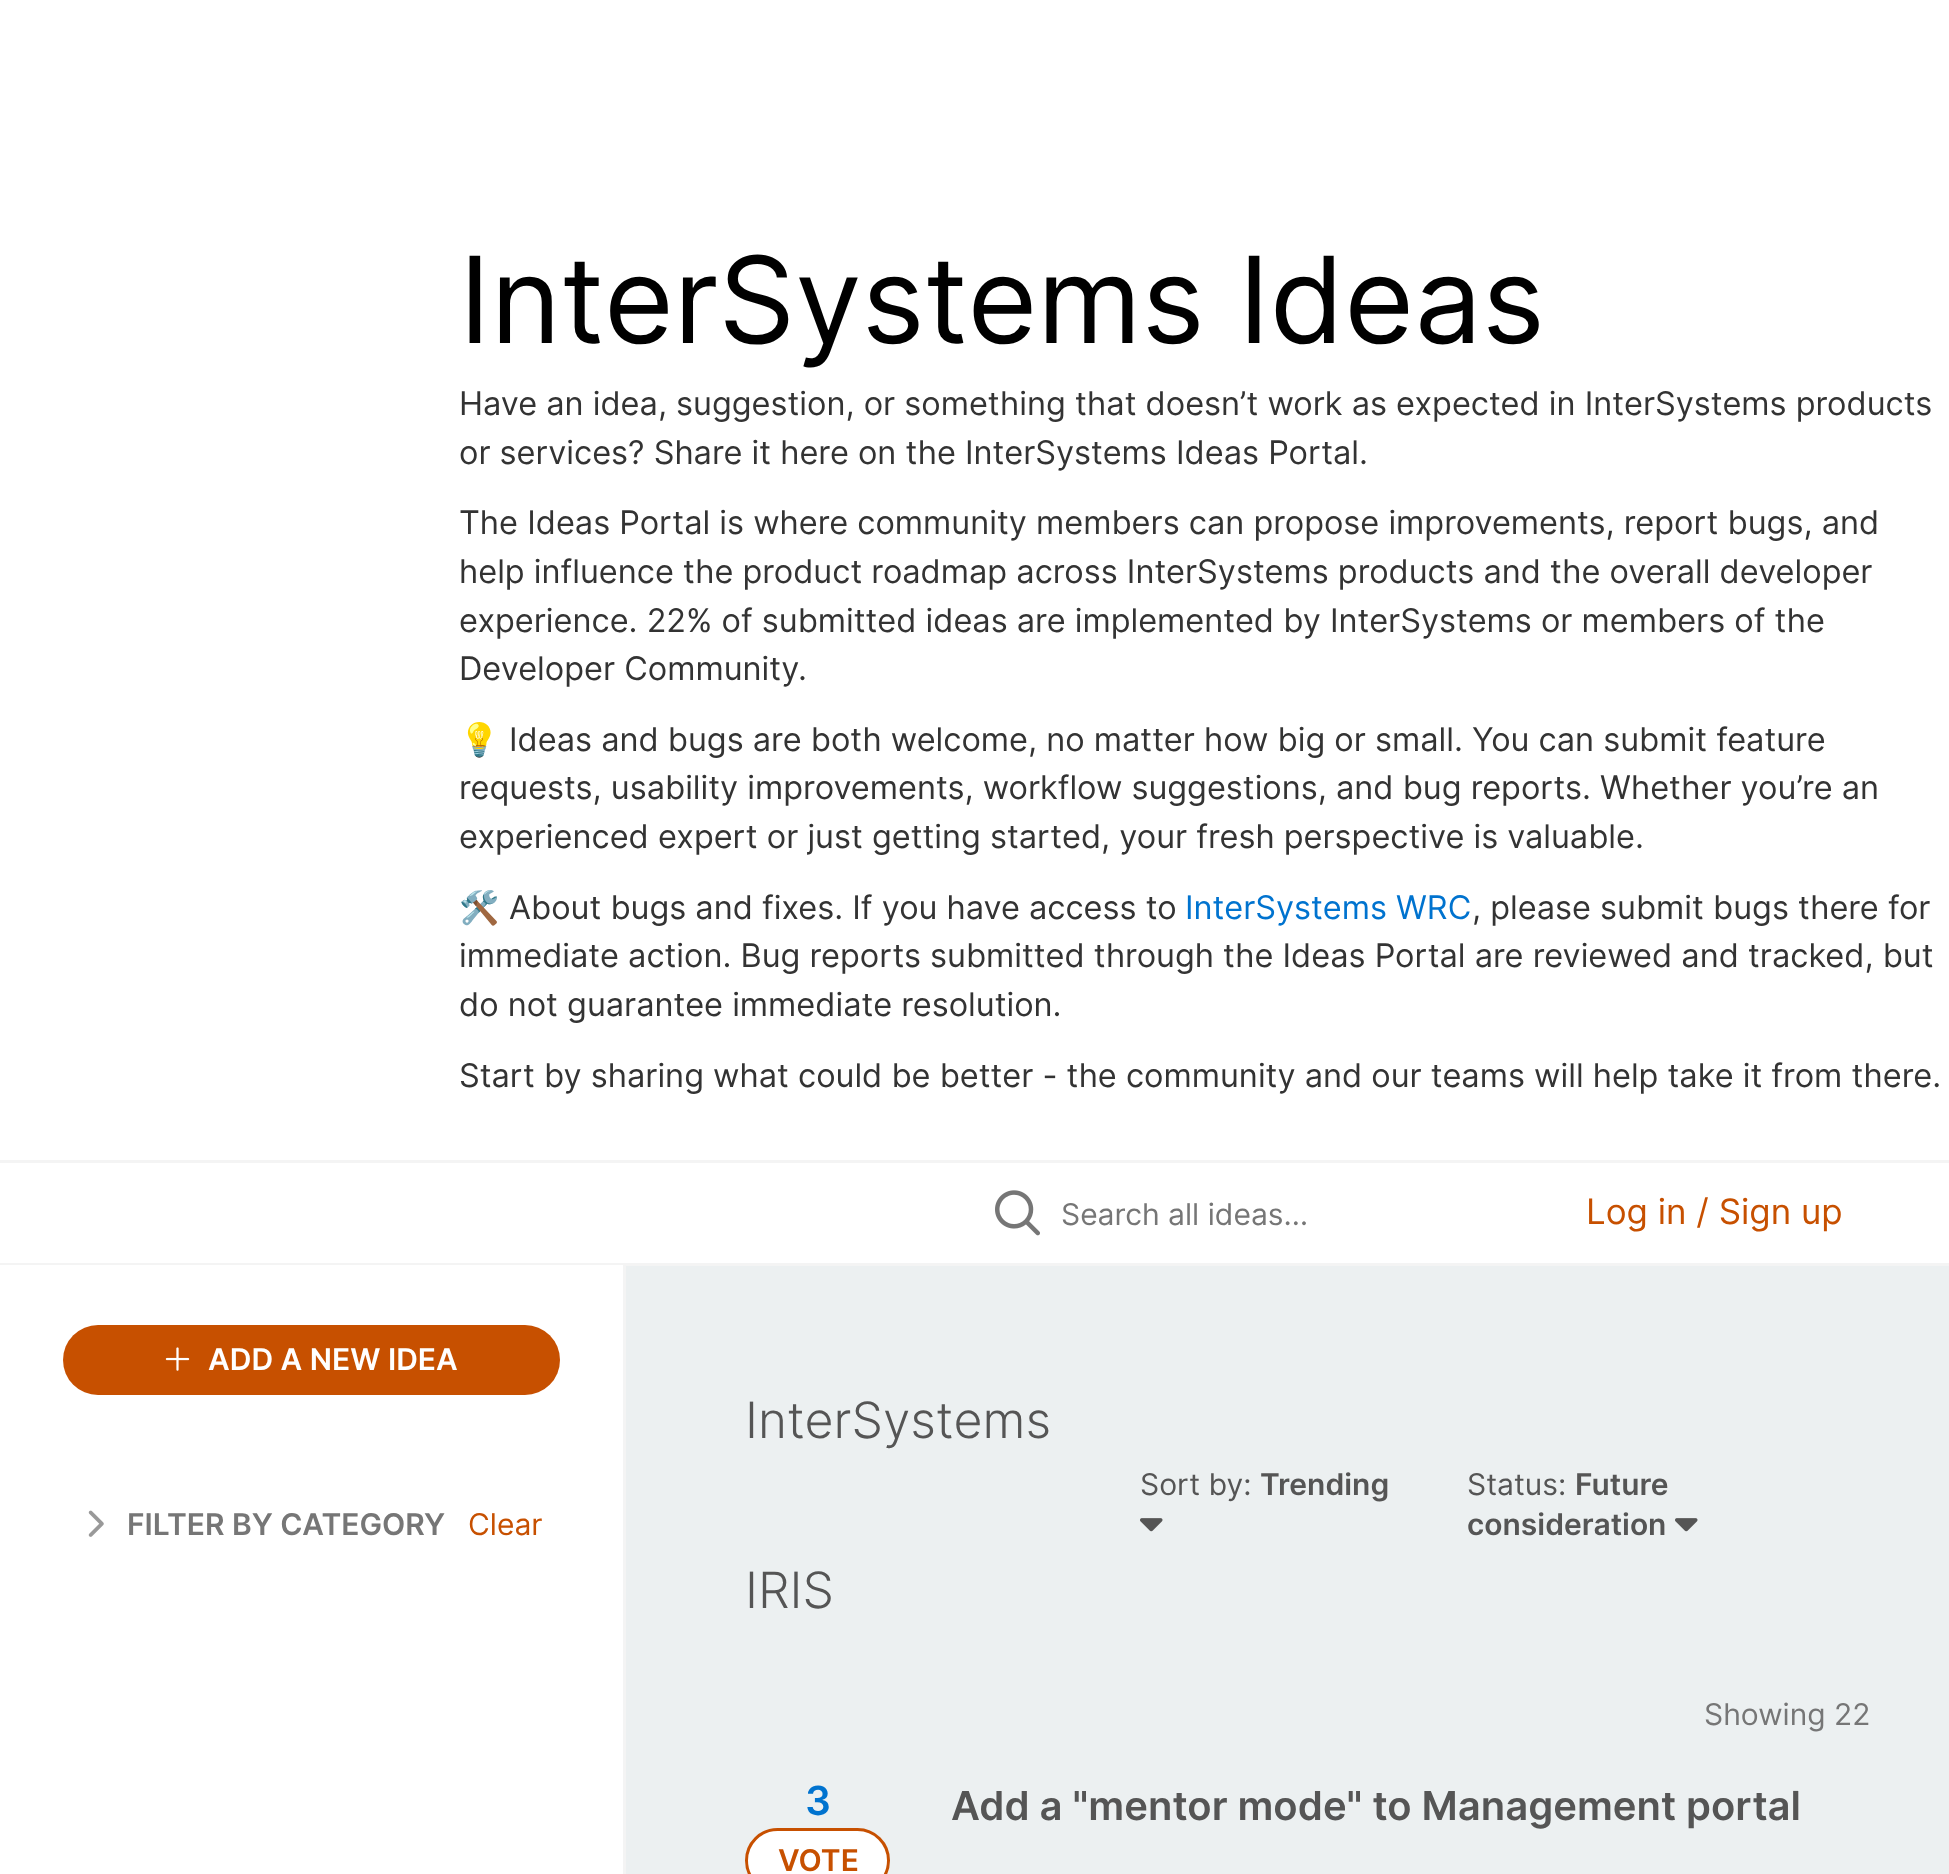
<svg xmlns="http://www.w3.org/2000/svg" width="1949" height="1874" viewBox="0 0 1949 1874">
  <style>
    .t1 { font: 120px Inter; fill: #000; }
    .t2 { font: 32.5px Inter; fill: #333; }
    .t3 { font: 32.5px Noto Color Emoji; fill: #333; }
    .t4 { font: 32.5px Inter; fill: #0073cf; }
    .t5 { font: 30px Inter; fill: #767676; }
    .t6 { font: 35px Inter; fill: #c75000; }
    .t7 { font: 600 30px Inter; fill: #fff; }
    .t8 { font: 600 30px Inter; fill: #767676; }
    .t9 { font: 30px Inter; fill: #c75000; }
    .t10 { font: 300 50px Inter; fill: #555; }
    .t11 { font: 30px Inter; fill: #555; }
    .t12 { font: 600 30px Inter; fill: #555; }
    .t13 { font: 600 40px Inter; fill: #0073cf; }
    .t14 { font: 600 30px Inter; fill: #c75000; }
    .t15 { font: 600 40px Inter; fill: #555; }
  </style>
  <rect width="100%" height="100%" fill="#ecf0f1"/>
  <rect x="0" y="0" width="1949" height="1160" fill="#fff"/>
  <rect x="0" y="1160" width="1949" height="3" fill="#f4f4f4"/>
  <text x="459" y="343" class="t1">InterSystems Ideas</text>
  <text x="459" y="415" class="t2">Have an idea, suggestion, or something that doesn’t work as expected in InterSystems products</text>
  <text x="459" y="464" class="t2">or services? Share it here on the InterSystems Ideas Portal.</text>
  <text x="459" y="534" class="t2">The Ideas Portal is where community members can propose improvements, report bugs, and</text>
  <text x="459" y="583" class="t2">help influence the product roadmap across InterSystems products and the overall developer</text>
  <text x="459" y="632" class="t2">experience. 22% of submitted ideas are implemented by InterSystems or members of the</text>
  <text x="459" y="680" class="t2">Developer Community.</text>
  <text x="459" y="751" class="t3">💡</text>
  <text x="509" y="751" class="t2">Ideas and bugs are both welcome, no matter how big or small. You can submit feature</text>
  <text x="459" y="799" class="t2">requests, usability improvements, workflow suggestions, and bug reports. Whether you’re an</text>
  <text x="459" y="848" class="t2">experienced expert or just getting started, your fresh perspective is valuable.</text>
  <text x="459" y="919" class="t3">🛠️</text>
  <text x="509" y="919" class="t2">About bugs and fixes. If you have access to</text>
  <text x="1185" y="919" class="t4">InterSystems WRC</text>
  <text x="1472" y="919" class="t2">, please submit bugs there for</text>
  <text x="459" y="967" class="t2">immediate action. Bug reports submitted through the Ideas Portal are reviewed and tracked, but</text>
  <text x="459" y="1016" class="t2">do not guarantee immediate resolution.</text>
  <text x="459" y="1087" class="t2">Start by sharing what could be better - the community and our teams will help take it from there.</text>
  <rect x="0" y="1163" width="1949" height="100" fill="#fff"/>
  <rect x="0" y="1263" width="1949" height="3" fill="#f4f4f4"/>
  <image x="995" y="1190" width="45" height="46" href="images/1.png"/>
  <text x="1061" y="1225" class="t5">Search all ideas…</text>
  <text x="1586" y="1224" class="t6">Log in / Sign up</text>
  <rect x="0" y="1265" width="623" height="609" fill="#fff"/>
  <rect x="623" y="1265" width="3" height="609" fill="#f4f4f4"/>
  <rect x="63" y="1325" width="497" height="70" rx="35" fill="#c75000"/>
  <image x="165" y="1347" width="25" height="24" href="images/2.png"/>
  <text x="208" y="1370" class="t7">ADD A NEW IDEA</text>
  <image x="88" y="1510" width="16" height="27" href="images/3.png"/>
  <text x="127" y="1535" class="t8">FILTER BY CATEGORY</text>
  <text x="468" y="1535" class="t9">Clear</text>
  <text x="745" y="1438" class="t10">InterSystems</text>
  <text x="745" y="1608" class="t10">IRIS</text>
  <text x="1140" y="1495" class="t11">Sort by:</text>
  <text x="1260" y="1495" class="t12">Trending</text>
  <image x="1140" y="1518" width="23" height="14" href="images/4.png"/>
  <text x="1467" y="1495" class="t11">Status:</text>
  <text x="1575" y="1495" class="t12">Future</text>
  <text x="1467" y="1535" class="t12">consideration</text>
  <image x="1675" y="1518" width="23" height="14" href="images/4.png"/>
  <text x="1704" y="1725" class="t5">Showing 22</text>
  <text x="805" y="1815" class="t13">3</text>
  <rect x="746.5" y="1829.5" width="142" height="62" rx="31" fill="#fff" stroke="#c75000" stroke-width="3"/>
  <text x="778" y="1871" class="t14">VOTE</text>
  <text x="951" y="1820" class="t15">Add a "mentor mode" to Management portal</text>
</svg>
